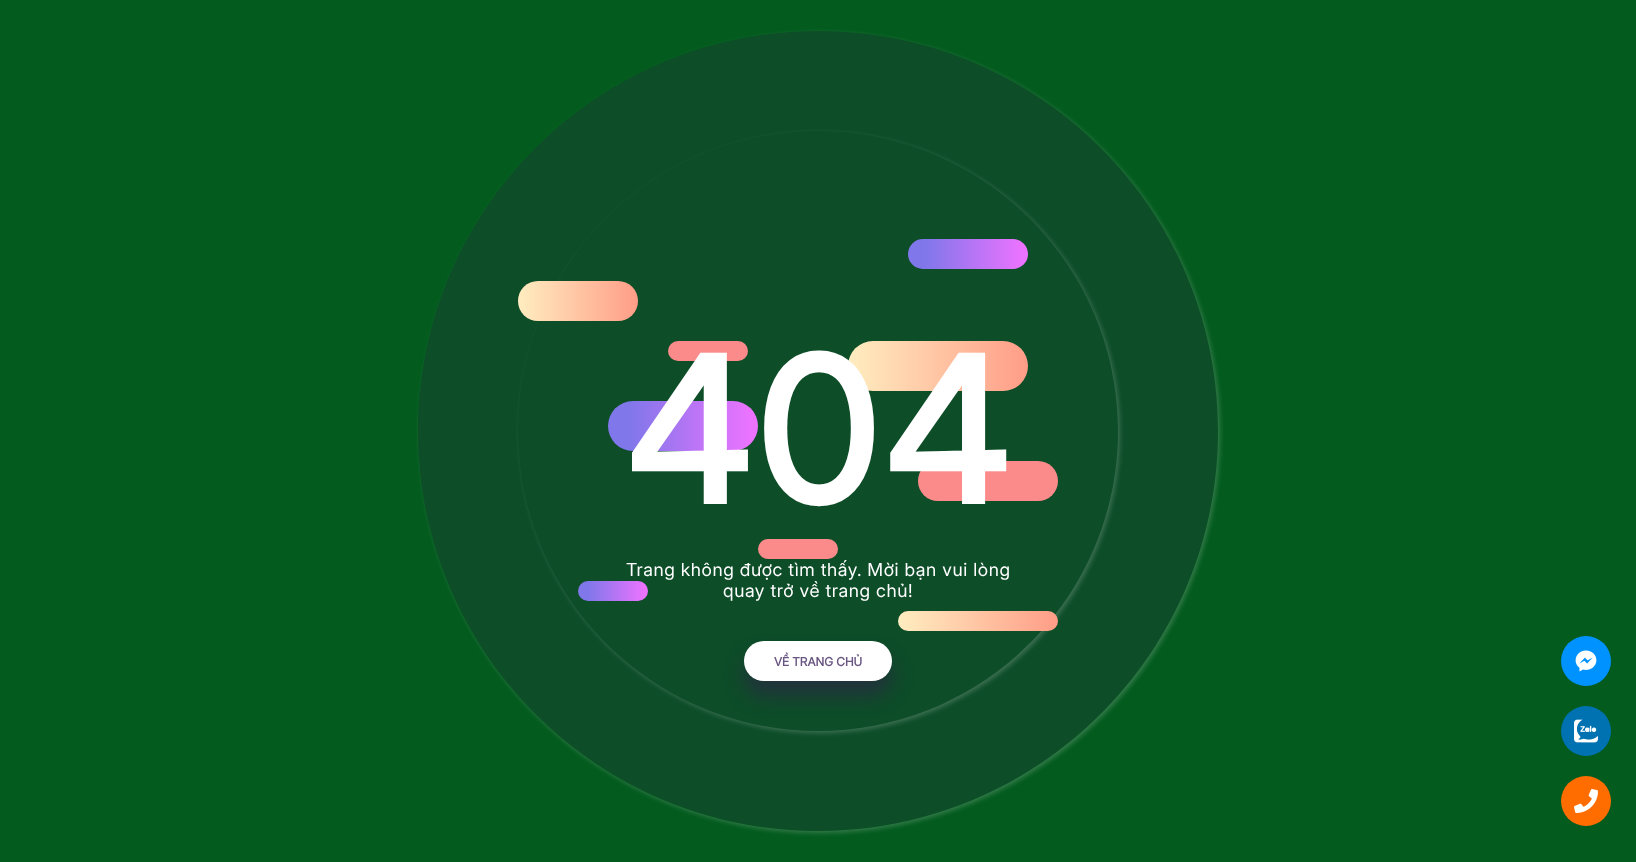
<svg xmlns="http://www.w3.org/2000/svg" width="1636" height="862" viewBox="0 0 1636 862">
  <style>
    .t1 { font: bold 200px Inter; letter-spacing: 4px; fill: #fff; }
    .t2 { font: 18px Inter; letter-spacing: 0.6px; fill: #fff; }
    .t3 { font: bold 12px Inter; fill: #695681; }
  </style>
  <defs>
    <clipPath id="clip1"><path d="M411 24H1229V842H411ZM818 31C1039 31 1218 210 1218 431C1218 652 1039 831 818 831C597 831 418 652 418 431C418 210 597 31 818 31Z" clip-rule="evenodd"/></clipPath>
    <clipPath id="clip2"><path d="M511 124H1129V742H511ZM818 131C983.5 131 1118 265.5 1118 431C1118 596.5 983.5 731 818 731C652.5 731 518 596.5 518 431C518 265.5 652.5 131 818 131Z" clip-rule="evenodd"/></clipPath>
    <linearGradient id="g1" gradientUnits="userSpaceOnUse" x1="908" y1="254" x2="1028" y2="254"><stop offset="0.14" stop-color="#8077ea"/><stop offset="0.95" stop-color="#eb73ff"/></linearGradient>
    <linearGradient id="g2" gradientUnits="userSpaceOnUse" x1="608" y1="426" x2="758" y2="426"><stop offset="0.14" stop-color="#8077ea"/><stop offset="0.95" stop-color="#eb73ff"/></linearGradient>
    <linearGradient id="g3" gradientUnits="userSpaceOnUse" x1="578" y1="591" x2="648" y2="591"><stop offset="0.14" stop-color="#8077ea"/><stop offset="0.95" stop-color="#eb73ff"/></linearGradient>
    <linearGradient id="g4" gradientUnits="userSpaceOnUse" x1="518" y1="301" x2="638" y2="301"><stop offset="0" stop-color="#ffedc0"/><stop offset="1" stop-color="#ff9d87"/></linearGradient>
    <linearGradient id="g5" gradientUnits="userSpaceOnUse" x1="848" y1="366" x2="1028" y2="366"><stop offset="0" stop-color="#ffedc0"/><stop offset="1" stop-color="#ff9d87"/></linearGradient>
    <linearGradient id="g6" gradientUnits="userSpaceOnUse" x1="898" y1="621" x2="1058" y2="621"><stop offset="0" stop-color="#ffedc0"/><stop offset="1" stop-color="#ff9d87"/></linearGradient>
  </defs>
  <rect width="100%" height="100%" fill="#035b1e"/>
  <g clip-path="url(#clip1)">
    <rect x="420" y="33" width="800" height="800" rx="400" fill="#ffffff33" filter="blur(2.5px)"/>
  </g>
  <circle cx="818" cy="431" r="400" fill="#36184f33"/>
  <g clip-path="url(#clip2)">
    <rect x="520" y="133" width="600" height="600" rx="300" fill="#ffffff33" filter="blur(2.5px)"/>
  </g>
  <rect x="908" y="239" width="120" height="30" rx="15" fill="url(#g1)"/>
  <rect x="608" y="401" width="150" height="50" rx="25" fill="url(#g2)"/>
  <rect x="578" y="581" width="70" height="20" rx="10" fill="url(#g3)"/>
  <rect x="518" y="281" width="120" height="40" rx="20" fill="url(#g4)"/>
  <rect x="848" y="341" width="180" height="50" rx="25" fill="url(#g5)"/>
  <rect x="898" y="611" width="160" height="20" rx="10" fill="url(#g6)"/>
  <rect x="668" y="341" width="80" height="20" rx="10" fill="#fb8a8a"/>
  <rect x="918" y="461" width="140" height="40" rx="20" fill="#fb8a8a"/>
  <rect x="758" y="539" width="80" height="20" rx="10" fill="#fb8a8a"/>
  <text x="624" y="504" class="t1">404</text>
  <text x="626" y="576" class="t2">Trang không được tìm thấy. Mời bạn vui lòng</text>
  <text x="723" y="597" class="t2">quay trở về trang chủ!</text>
  <rect x="744" y="656" width="148" height="40" rx="20" fill="#36184f80" filter="blur(10px)"/>
  <rect x="744" y="641" width="148" height="40" rx="20" fill="#fff"/>
  <text x="774" y="666" class="t3">VỀ TRANG CHỦ</text>
  <circle cx="1586" cy="661" r="25" fill="#0092ff"/>
  <image x="1575" y="650" width="22" height="22" href="images/1.png"/>
  <circle cx="1586" cy="731" r="25" fill="#0072b2"/>
  <image x="1574" y="719" width="24" height="24" href="images/2.png"/>
  <circle cx="1586" cy="801" r="25" fill="#ff6d00"/>
  <image x="1574" y="789" width="24" height="24" href="images/3.png"/>
</svg>
